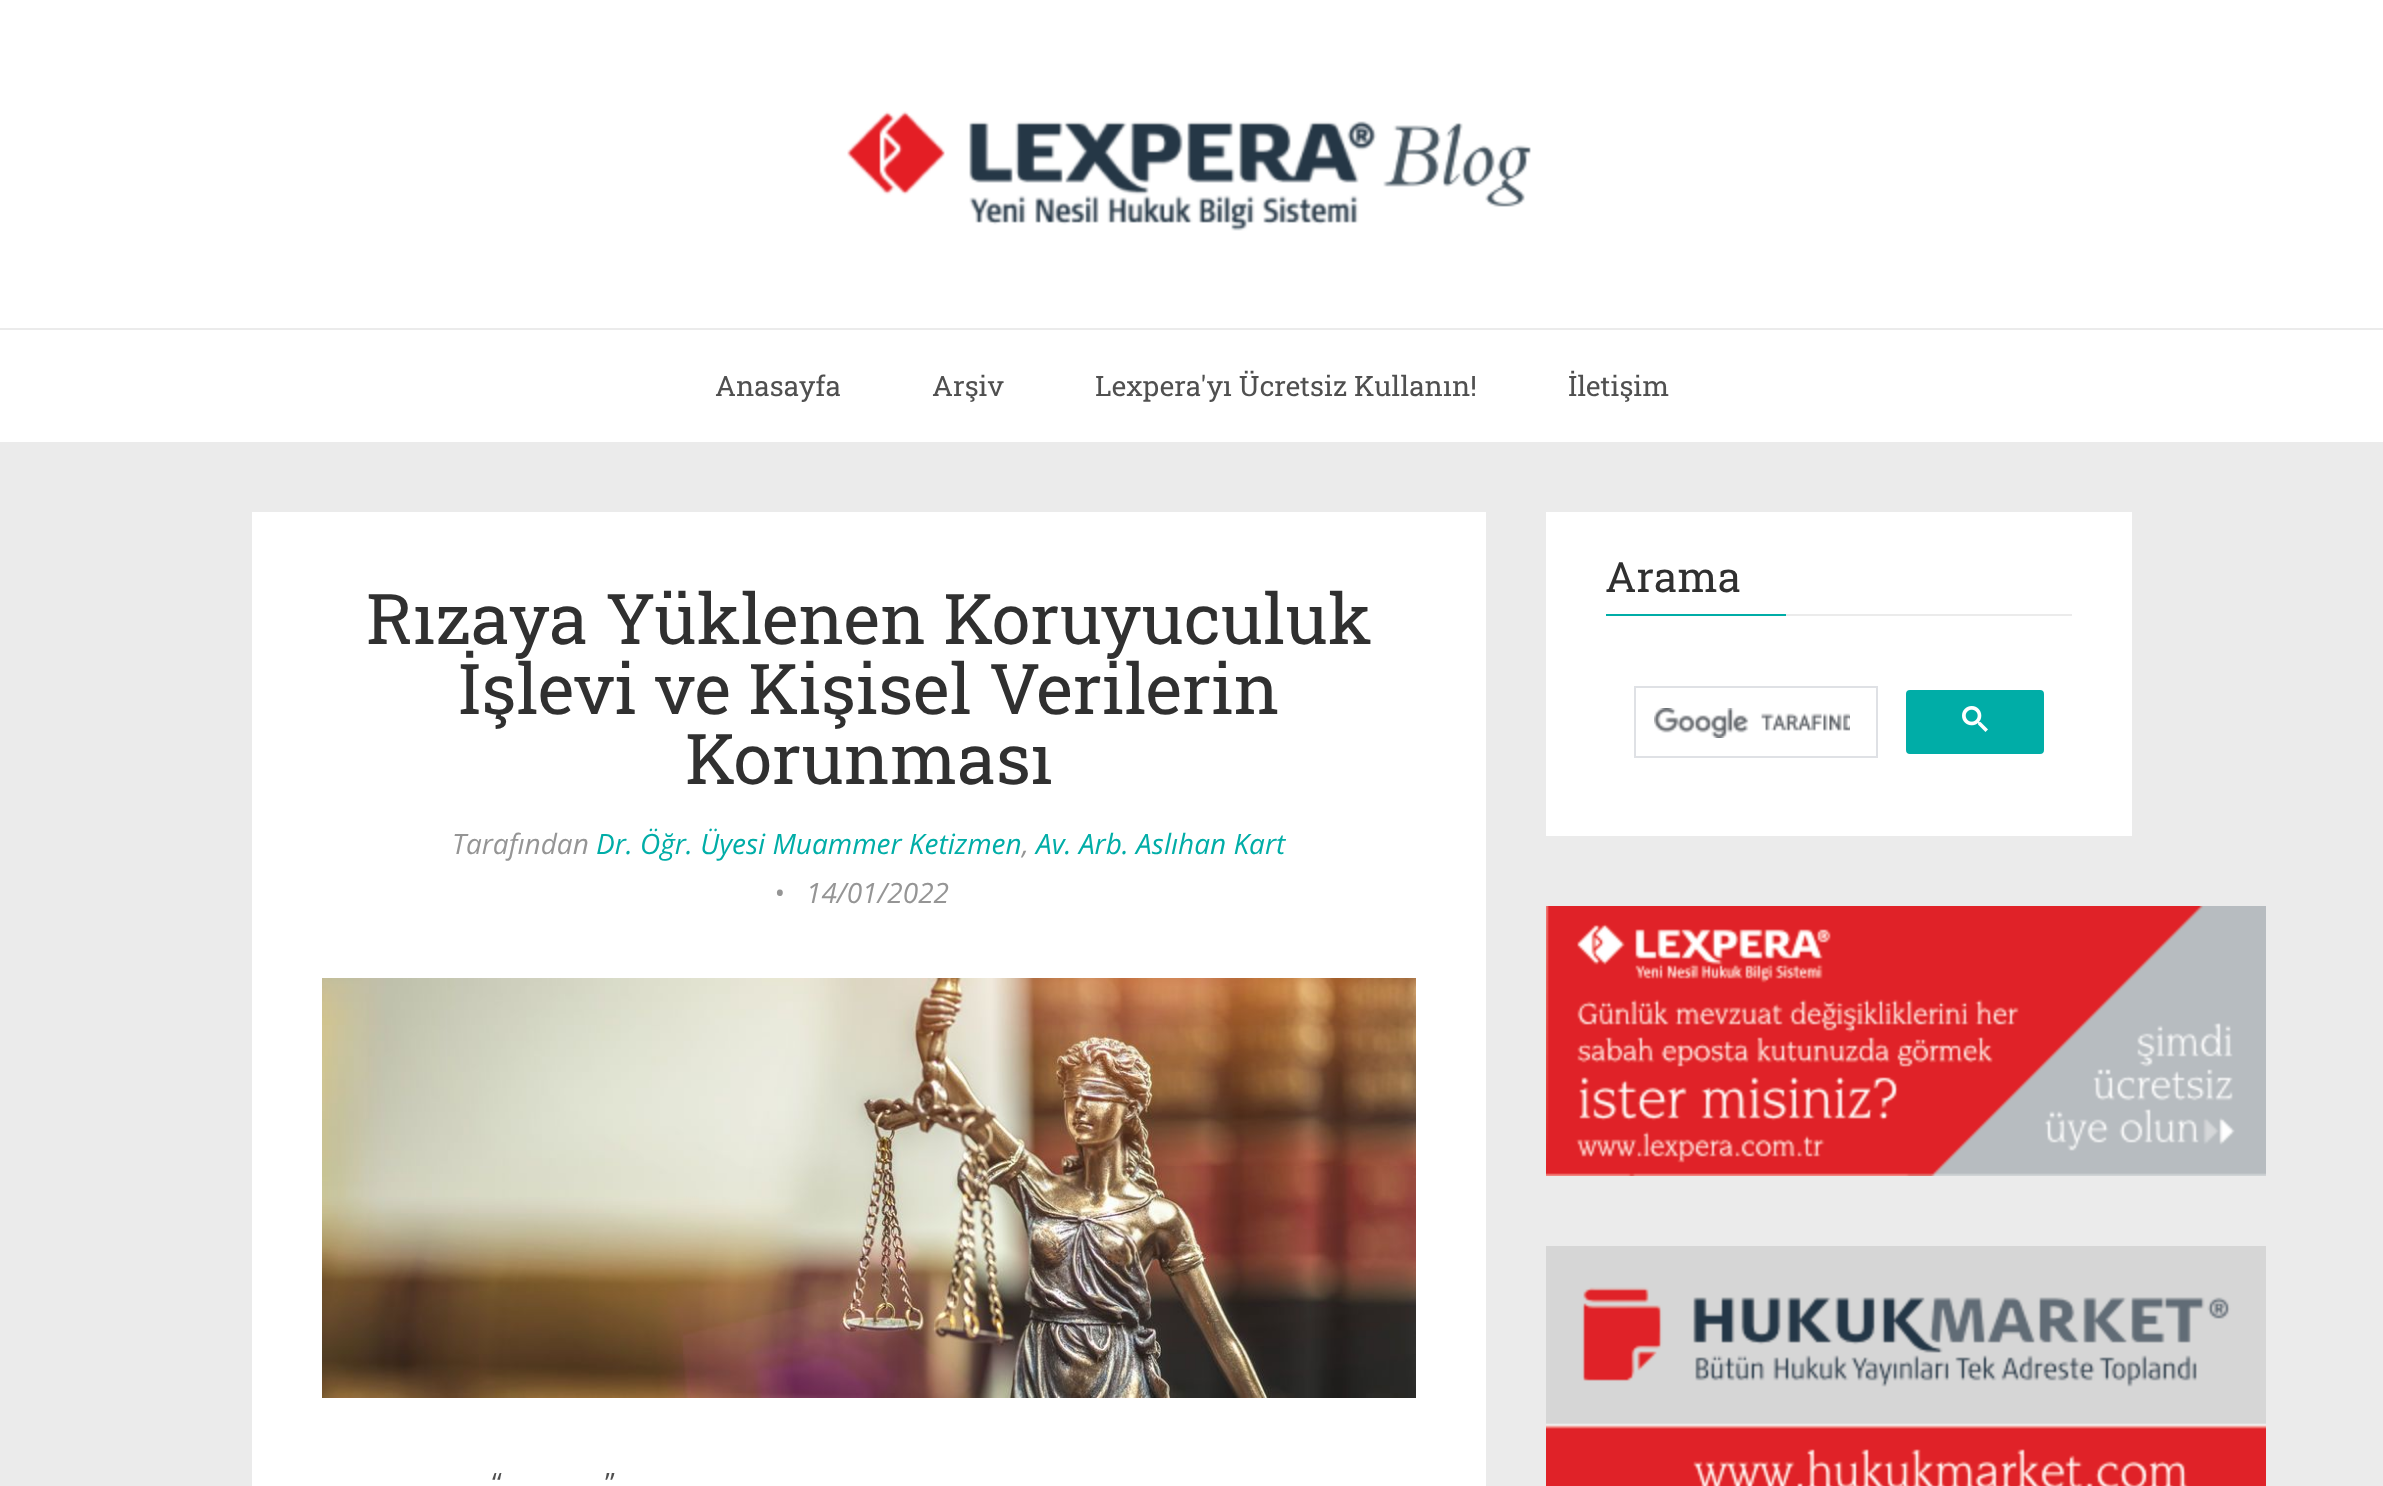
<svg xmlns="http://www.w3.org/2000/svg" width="2383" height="1486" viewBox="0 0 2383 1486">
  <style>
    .t1 { font: 28px Roboto Slab; fill: #505050; }
    .t2 { font: 42px Roboto Slab; fill: #303030; }
    .t3 { font: 70px Roboto Slab; fill: #303030; }
    .t4 { font: italic 28px Open Sans; fill: #959595; }
    .t5 { font: italic 28px Open Sans; fill: #00ada7; }
    .t6 { font: 28px Open Sans; fill: #505050; }
  </style>
  <rect width="100%" height="100%" fill="#ebebeb"/>
  <rect x="0" y="0" width="2383" height="328" fill="#fff"/>
  <image x="847" y="111" width="684" height="120" href="images/1.png"/>
  <rect x="0" y="330" width="2383" height="112" fill="#fff"/>
  <text x="715" y="396" class="t1">Anasayfa</text>
  <text x="932" y="396" class="t1">Arşiv</text>
  <text x="1095" y="396" class="t1">Lexpera'yı Ücretsiz Kullanın!</text>
  <text x="1568" y="396" class="t1">İletişim</text>
  <rect x="1546" y="512" width="586" height="324" fill="#fff"/>
  <rect x="1786" y="614" width="286" height="2" fill="#ebebeb"/>
  <text x="1605" y="592" class="t2">Arama</text>
  <rect x="1606" y="614" width="180" height="2" fill="#00ada7"/>
  <rect x="1635" y="687" width="242" height="70" fill="none" stroke="#dfe1e5" stroke-width="2"/>
  <image x="1654" y="708" width="196" height="30" href="images/2.png"/>
  <rect x="1907" y="691" width="136" height="62" rx="3" fill="#00ada7" stroke="#00ada7" stroke-width="2"/>
  <image x="1962" y="706" width="26" height="26" href="images/3.png"/>
  <image x="1546" y="906" width="720" height="270" href="images/4.png"/>
  <image x="1546" y="1246" width="720" height="240" href="images/5.png"/>
  <rect x="252" y="512" width="1234" height="974" fill="#fff"/>
  <text x="366" y="644" class="t3">Rızaya Yüklenen Koruyuculuk</text>
  <text x="458" y="714" class="t3">İşlevi ve Kişisel Verilerin</text>
  <text x="685" y="784" class="t3">Korunması</text>
  <text x="452" y="854" class="t4">Tarafından</text>
  <text x="596" y="854" class="t5">Dr. Öğr. Üyesi Muammer Ketizmen</text>
  <text x="1022" y="854" class="t4">,</text>
  <text x="1036" y="854" class="t5">Av. Arb. Aslıhan Kart</text>
  <text x="774" y="903" class="t4">•</text>
  <text x="806" y="903" class="t4">14/01/2022</text>
  <image x="322" y="978" width="1094" height="420" href="images/6.png"/>
  <text x="492" y="1493" class="t6">“</text>
  <text x="605" y="1493" class="t6">”</text>
</svg>
